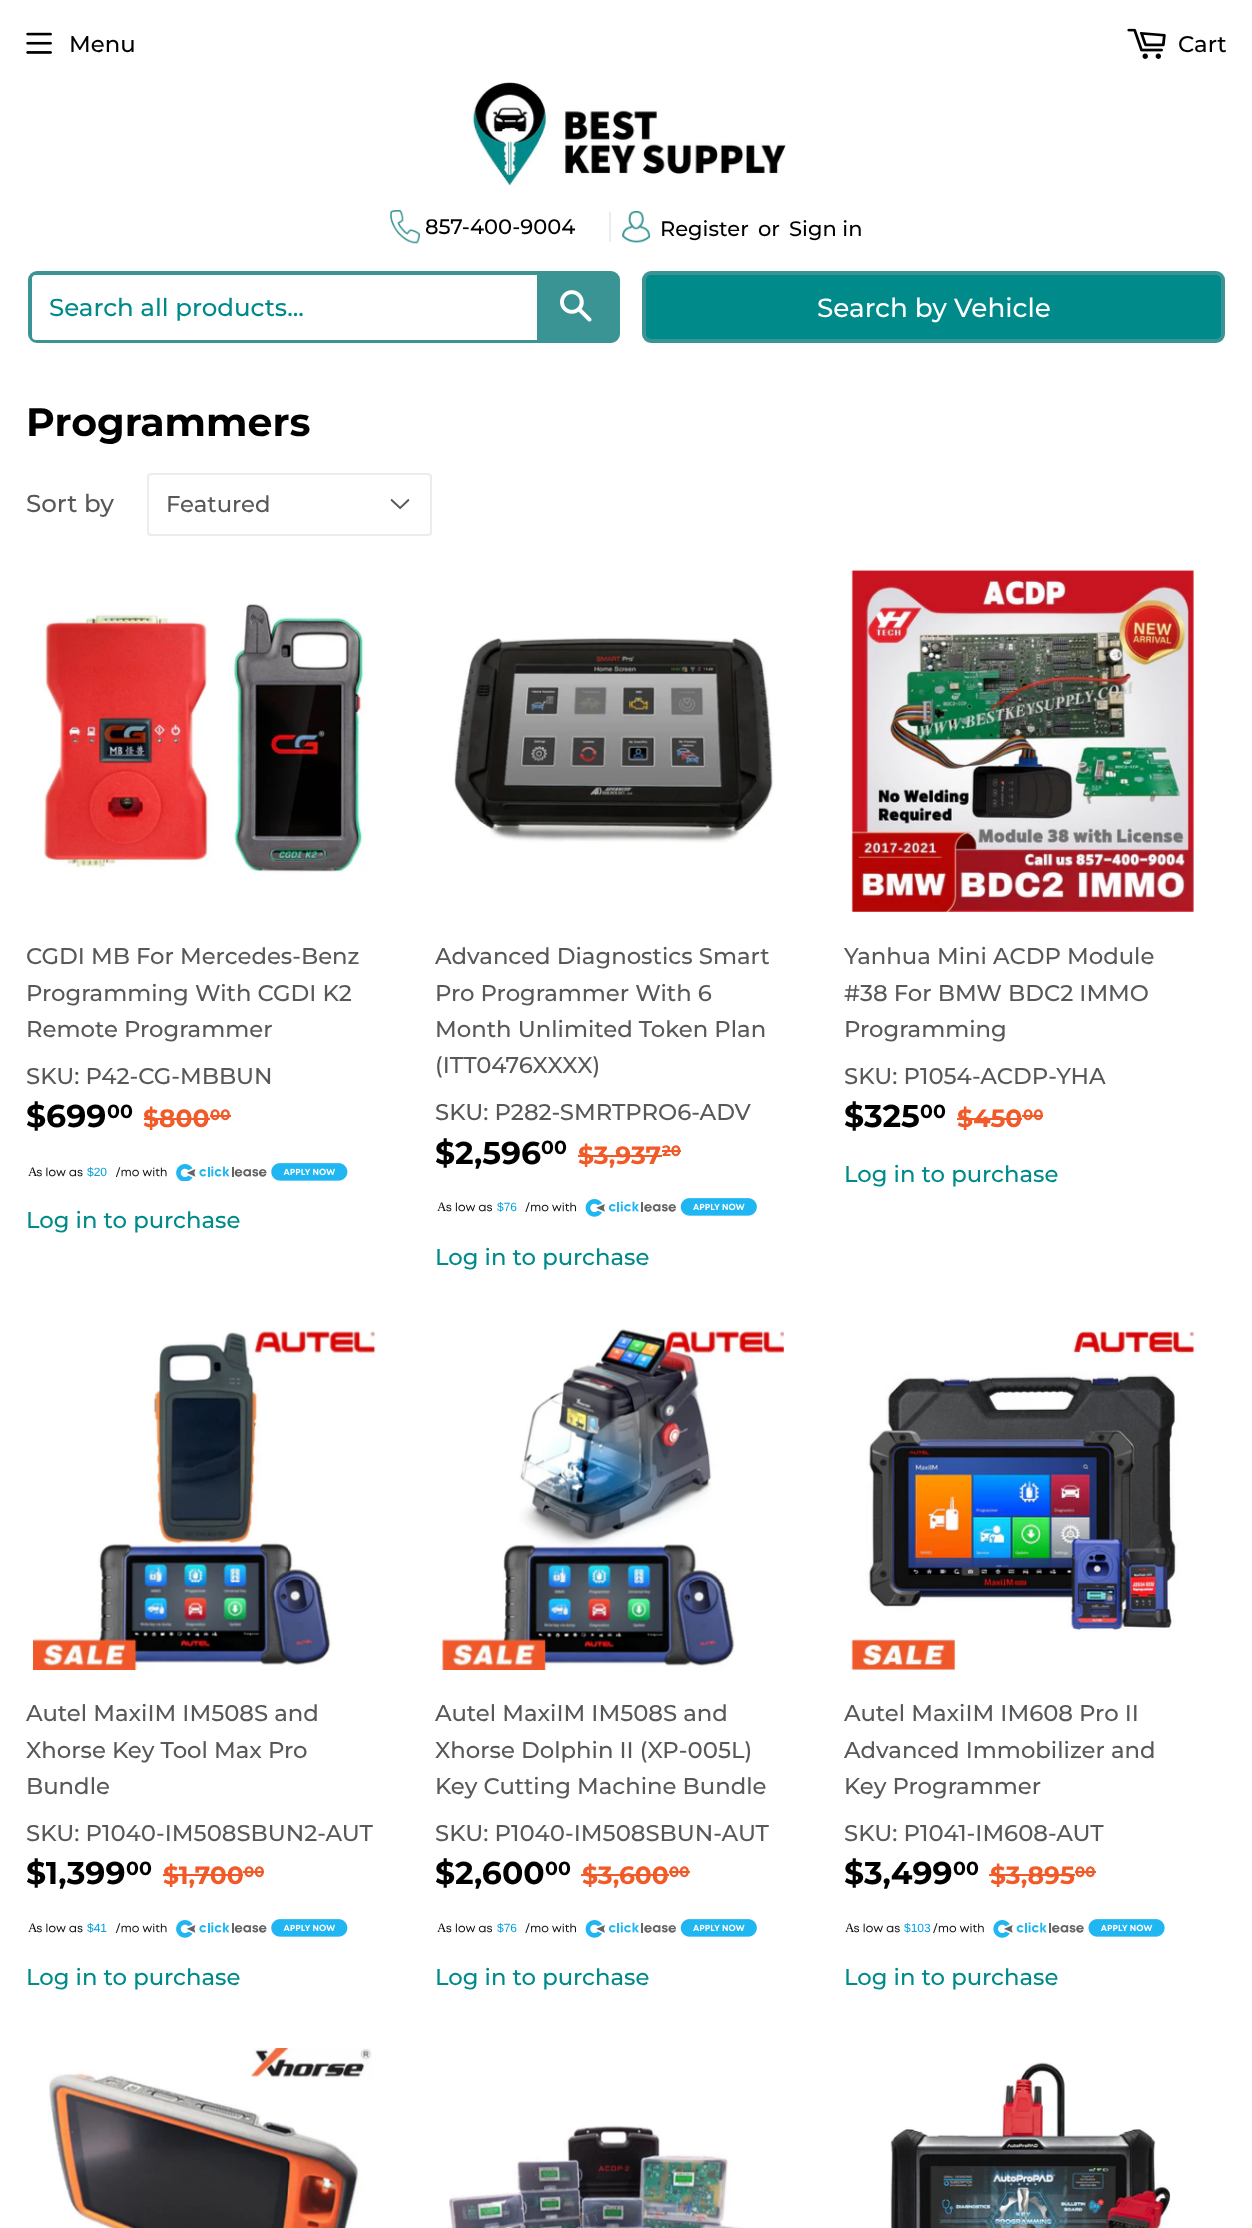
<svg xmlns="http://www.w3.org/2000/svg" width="1252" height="2228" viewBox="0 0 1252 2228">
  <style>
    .t1 { font: 500 22.75px Montserrat; fill: #000; }
    .t2 { font: 500 21px Montserrat; fill: #000; }
    .t3 { font: 500 24.5px Montserrat; fill: #008a8a; }
    .t4 { font: 500 26.25px Montserrat; fill: #fff; }
    .t5 { font: bold 39.5px Montserrat; fill: #000; }
    .t6 { font: 500 24.5px Montserrat; fill: #585858; }
    .t7 { font: 500 22.75px Montserrat; fill: #585858; }
    .t8 { font: bold 31.5px Montserrat; fill: #000; }
    .t9 { font: bold 19px Montserrat; fill: #000; }
    .t10 { font: bold 25px Montserrat; fill: #f15a29; }
    .t11 { font: bold 15px Montserrat; fill: #f15a29; }
    .t12 { font: 13px Liberation Serif; fill: #000; }
    .t13 { font: 12px Liberation Sans; fill: #009fdf; }
    .t14 { font: 500 22.75px Montserrat; fill: #008a8a; }
  </style>
  <rect width="100%" height="100%" fill="#fff"/>
  <image x="26" y="32" width="26" height="22" href="images/1.png"/>
  <text x="69" y="52" class="t1">Menu</text>
  <image x="1127" y="28" width="39" height="31" href="images/2.png"/>
  <text x="1178" y="52" class="t1">Cart</text>
  <image x="471" y="81" width="315" height="105" href="images/3.png"/>
  <image x="390" y="210" width="30" height="34" href="images/4.png"/>
  <text x="425" y="234" class="t2">857-400-9004</text>
  <rect x="609" y="212" width="2" height="30" fill="#ececec"/>
  <image x="622" y="210" width="29" height="33" href="images/5.png"/>
  <text x="660" y="236" class="t2">Register</text>
  <text x="758" y="236" class="t2">or</text>
  <text x="789" y="236" class="t2">Sign in</text>
  <rect x="30" y="273" width="588" height="68" rx="7" fill="none" stroke="#3b9494" stroke-width="4"/>
  <rect x="32" y="275" width="584" height="65" rx="4" fill="#fff"/>
  <text x="49" y="316" class="t3">Search all products...</text>
  <rect x="537" y="275" width="79" height="65" fill="#3b9494"/>
  <image x="560" y="290" width="32" height="32" href="images/6.png"/>
  <rect x="644" y="273" width="579" height="68" rx="7" fill="#008a8a" stroke="#3b9494" stroke-width="4"/>
  <text x="817" y="317" class="t4">Search by Vehicle</text>
  <text x="26" y="436" class="t5">Programmers</text>
  <text x="26" y="512" class="t6">Sort by</text>
  <image x="390" y="498" width="20" height="12" href="images/7.png"/>
  <rect x="148" y="474" width="283" height="61" rx="3" fill="none" stroke="#ececec" stroke-width="2"/>
  <text x="166" y="512" class="t7">Featured</text>
  <image x="43" y="604" width="323" height="270" href="images/8.png"/>
  <text x="26" y="964" class="t7">CGDI MB For Mercedes-Benz</text>
  <text x="26" y="1001" class="t7">Programming With CGDI K2</text>
  <text x="26" y="1037" class="t7">Remote Programmer</text>
  <text x="26" y="1084" class="t7">SKU: P42-CG-MBBUN</text>
  <text x="26" y="1127" class="t8">$699</text>
  <text x="107" y="1118" class="t9">00</text>
  <text x="143" y="1127" class="t10">$800</text>
  <rect x="144" y="1118" width="66" height="2" fill="#f15a29"/>
  <text x="210" y="1120" class="t11">00</text>
  <rect x="210" y="1115" width="21" height="2" fill="#f15a29"/>
  <image x="36" y="1163" width="312" height="18" href="images/9.png"/>
  <text x="28" y="1176" class="t12">A</text>
  <text x="87" y="1176" class="t13">$20</text>
  <text x="26" y="1228" class="t14">Log in to purchase</text>
  <image x="454" y="637" width="320" height="206" href="images/10.png"/>
  <text x="435" y="964" class="t7">Advanced Diagnostics Smart</text>
  <text x="435" y="1001" class="t7">Pro Programmer With 6</text>
  <text x="435" y="1037" class="t7">Month Unlimited Token Plan</text>
  <text x="435" y="1073" class="t7">(ITT0476XXXX)</text>
  <text x="435" y="1120" class="t7">SKU: P282-SMRTPRO6-ADV</text>
  <text x="435" y="1164" class="t8">$2,596</text>
  <text x="541" y="1154" class="t9">00</text>
  <text x="578" y="1164" class="t10">$3,937</text>
  <rect x="578" y="1155" width="84" height="2" fill="#f15a29"/>
  <text x="662" y="1156" class="t11">20</text>
  <rect x="662" y="1150" width="19" height="2" fill="#f15a29"/>
  <image x="446" y="1198" width="311" height="19" href="images/11.png"/>
  <text x="437" y="1211" class="t12">A</text>
  <text x="497" y="1211" class="t13">$76</text>
  <text x="435" y="1265" class="t14">Log in to purchase</text>
  <image x="851" y="569" width="343" height="343" href="images/12.png"/>
  <text x="844" y="964" class="t7">Yanhua Mini ACDP Module</text>
  <text x="844" y="1001" class="t7">#38 For BMW BDC2 IMMO</text>
  <text x="844" y="1037" class="t7">Programming</text>
  <text x="844" y="1084" class="t7">SKU: P1054-ACDP-YHA</text>
  <text x="844" y="1127" class="t8">$325</text>
  <text x="920" y="1118" class="t9">00</text>
  <text x="957" y="1127" class="t10">$450</text>
  <rect x="957" y="1118" width="65" height="2" fill="#f15a29"/>
  <text x="1023" y="1120" class="t11">00</text>
  <rect x="1022" y="1115" width="21" height="2" fill="#f15a29"/>
  <text x="844" y="1182" class="t14">Log in to purchase</text>
  <image x="33" y="1329" width="343" height="341" href="images/13.png"/>
  <text x="26" y="1721" class="t7">Autel MaxiIM IM508S and</text>
  <text x="26" y="1758" class="t7">Xhorse Key Tool Max Pro</text>
  <text x="26" y="1794" class="t7">Bundle</text>
  <text x="26" y="1841" class="t7">SKU: P1040-IM508SBUN2-AUT</text>
  <text x="26" y="1884" class="t8">$1,399</text>
  <text x="126" y="1875" class="t9">00</text>
  <text x="163" y="1884" class="t10">$1,700</text>
  <rect x="163" y="1874" width="80" height="2" fill="#f15a29"/>
  <text x="244" y="1877" class="t11">00</text>
  <rect x="243" y="1871" width="21" height="2" fill="#f15a29"/>
  <image x="36" y="1919" width="312" height="19" href="images/14.png"/>
  <text x="28" y="1932" class="t12">A</text>
  <text x="87" y="1932" class="t13">$41</text>
  <text x="26" y="1985" class="t14">Log in to purchase</text>
  <image x="442" y="1328" width="342" height="342" href="images/15.png"/>
  <text x="435" y="1721" class="t7">Autel MaxiIM IM508S and</text>
  <text x="435" y="1758" class="t7">Xhorse Dolphin II (XP-005L)</text>
  <text x="435" y="1794" class="t7">Key Cutting Machine Bundle</text>
  <text x="435" y="1841" class="t7">SKU: P1040-IM508SBUN-AUT</text>
  <text x="435" y="1884" class="t8">$2,600</text>
  <text x="545" y="1875" class="t9">00</text>
  <text x="582" y="1884" class="t10">$3,600</text>
  <rect x="581" y="1874" width="88" height="2" fill="#f15a29"/>
  <text x="669" y="1877" class="t11">00</text>
  <rect x="669" y="1871" width="21" height="2" fill="#f15a29"/>
  <image x="446" y="1919" width="311" height="19" href="images/11.png"/>
  <text x="437" y="1932" class="t12">A</text>
  <text x="497" y="1932" class="t13">$76</text>
  <text x="435" y="1985" class="t14">Log in to purchase</text>
  <image x="851" y="1328" width="343" height="342" href="images/16.png"/>
  <text x="844" y="1721" class="t7">Autel MaxiIM IM608 Pro II</text>
  <text x="844" y="1758" class="t7">Advanced Immobilizer and</text>
  <text x="844" y="1794" class="t7">Key Programmer</text>
  <text x="844" y="1841" class="t7">SKU: P1041-IM608-AUT</text>
  <text x="844" y="1884" class="t8">$3,499</text>
  <text x="953" y="1875" class="t9">00</text>
  <text x="990" y="1884" class="t10">$3,895</text>
  <rect x="989" y="1874" width="86" height="2" fill="#f15a29"/>
  <text x="1075" y="1877" class="t11">00</text>
  <rect x="1075" y="1871" width="21" height="2" fill="#f15a29"/>
  <image x="854" y="1919" width="311" height="19" href="images/17.png"/>
  <text x="845" y="1932" class="t12">A</text>
  <text x="904" y="1932" class="t13">$103</text>
  <text x="844" y="1985" class="t14">Log in to purchase</text>
  <image x="48" y="2048" width="324" height="180" href="images/18.png"/>
  <image x="449" y="2125" width="293" height="103" href="images/19.png"/>
  <image x="890" y="2062" width="281" height="166" href="images/20.png"/>
</svg>
